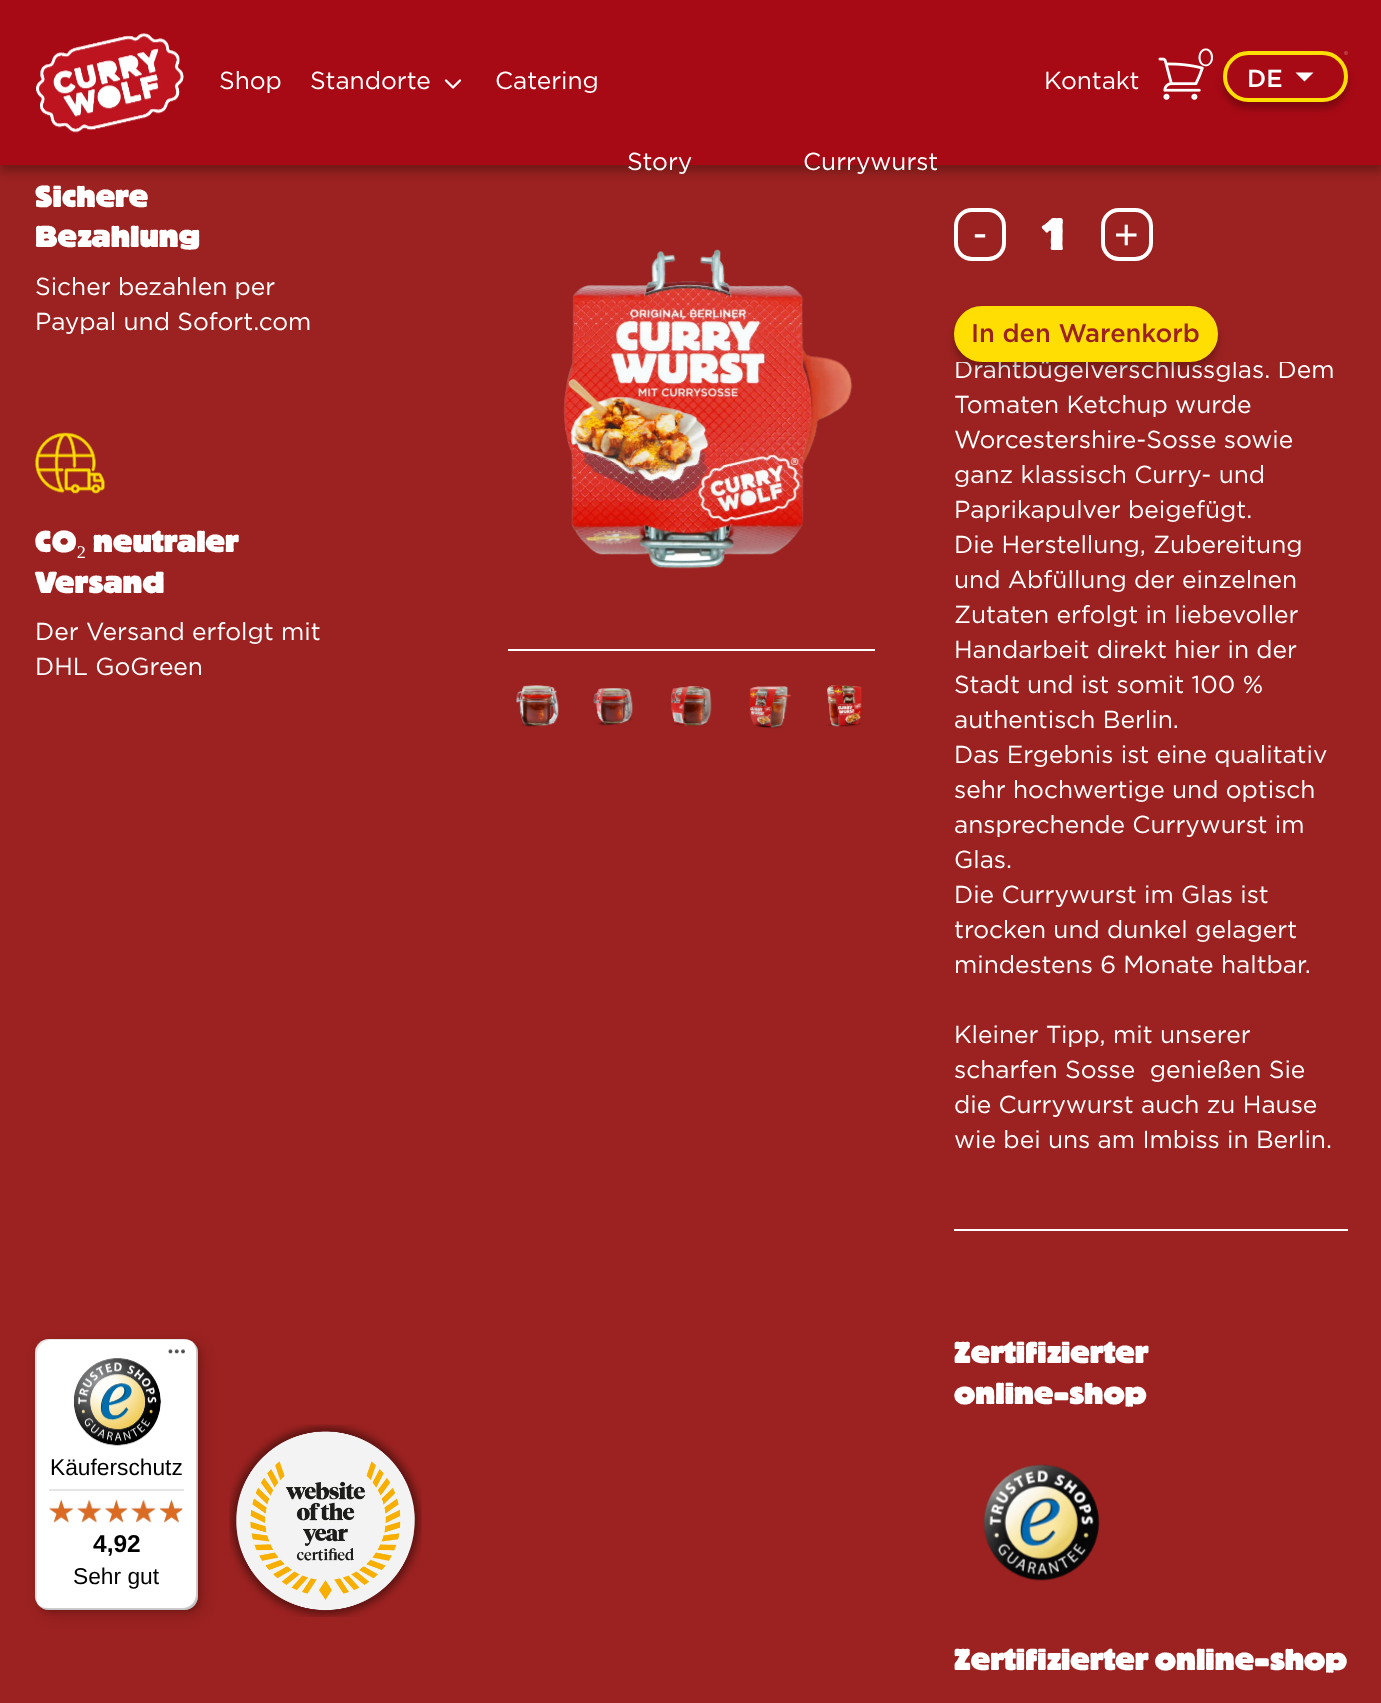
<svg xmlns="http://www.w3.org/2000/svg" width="1381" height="1703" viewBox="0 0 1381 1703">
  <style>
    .t1 { font: 24.5px Gotham; fill: #fff; }
    .t2 { font: 500 24.5px Gotham; fill: #fff; }
    .t3 { font: 900 30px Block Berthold; fill: #fff; }
    .t4 { font: 30px Liberation Serif; fill: #fff; }
    .t5 { font: 42px Liberation Sans; fill: #fff; }
    .t6 { font: 900 45px Block Berthold; fill: #fff; }
    .t7 { font: 500 25.5px Gotham; fill: #9b2220; }
    .t8 { font: 22.75px Liberation Sans; fill: #000; }
    .t9 { font: bold 24.5px Liberation Sans; fill: #000; }
  </style>
  <defs>
    <clipPath id="clip1"><path d="M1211 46H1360V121H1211ZM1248.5 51H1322.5C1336.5 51 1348 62.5 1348 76.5C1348 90.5 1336.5 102 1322.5 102H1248.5C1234.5 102 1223 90.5 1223 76.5C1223 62.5 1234.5 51 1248.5 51Z" clip-rule="evenodd"/></clipPath>
  </defs>
  <rect width="100%" height="100%" fill="#9b2220"/>
  <rect x="0" y="7" width="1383" height="165" fill="#00000040" filter="blur(4.5px)"/>
  <rect x="0" y="0" width="1381" height="165" fill="#a80a15"/>
  <image x="35" y="33" width="149" height="100" href="images/1.png"/>
  <text x="219" y="89" class="t1">Shop</text>
  <text x="310" y="89" class="t1">Standorte</text>
  <path d="M446 80.5L453 87.5L460 80.5" fill="none" stroke="#fff" stroke-width="2.3" stroke-linecap="round" stroke-linejoin="round"/>
  <text x="495" y="89" class="t1">Catering</text>
  <text x="1044" y="89" class="t1">Kontakt</text>
  <text x="627" y="170" class="t1">Story</text>
  <text x="803" y="170" class="t1">Currywurst</text>
  <image x="1158" y="57" width="46" height="43" href="images/2.png"/>
  <text x="1197" y="66" class="t1">0</text>
  <g clip-path="url(#clip1)">
    <rect x="1223" y="58" width="125" height="51" rx="25.5" fill="#00000040" filter="blur(3.5px)"/>
  </g>
  <rect x="1225" y="53" width="121" height="47" rx="23.5" fill="none" stroke="#fede03" stroke-width="4"/>
  <circle cx="1346" cy="53" r="2" fill="#b93b44"/>
  <text x="1247" y="87" class="t2">DE</text>
  <path d="M1295.5 72.5L1304.5 81.5L1313.5 72.5Z" fill="#fff"/>
  <text x="35" y="207" class="t3">Sichere</text>
  <text x="35" y="247" class="t3">Bezahlung</text>
  <text x="35" y="295" class="t1">Sicher bezahlen per</text>
  <text x="35" y="330" class="t1">Paypal und Sofort.com</text>
  <image x="35" y="432" width="70" height="62" href="images/3.png"/>
  <text x="35" y="552" class="t3">CO</text>
  <text x="76" y="552" class="t4">₂</text>
  <text x="93" y="552" class="t3">neutraler</text>
  <text x="35" y="593" class="t3">Versand</text>
  <text x="35" y="640" class="t1">Der Versand erfolgt mit</text>
  <text x="35" y="675" class="t1">DHL GoGreen</text>
  <image x="563" y="249" width="290" height="320" href="images/4.png"/>
  <rect x="508" y="649" width="367" height="2" fill="#fff"/>
  <image x="516" y="685" width="43" height="42" href="images/5.png"/>
  <image x="593" y="688" width="41" height="38" href="images/6.png"/>
  <image x="671" y="686" width="41" height="41" href="images/7.png"/>
  <image x="749" y="686" width="43" height="43" href="images/8.png"/>
  <image x="826" y="685" width="37" height="42" href="images/9.png"/>
  <text x="954" y="378" class="t1">Drahtbügelverschlussglas. Dem</text>
  <rect x="956" y="360" width="335" height="2" fill="#9b2220"/>
  <rect x="956" y="210" width="48" height="49" rx="16" fill="none" stroke="#fff" stroke-width="4"/>
  <text x="973" y="247" class="t5">-</text>
  <text x="1039" y="250" class="t6">1</text>
  <rect x="1103" y="210" width="48" height="49" rx="16" fill="none" stroke="#fff" stroke-width="4"/>
  <text x="1114" y="249" class="t5">+</text>
  <rect x="954" y="313" width="264" height="56" rx="28" fill="#00000040" filter="blur(3.5px)"/>
  <rect x="956" y="308" width="260" height="52" rx="26" fill="#fede03" stroke="#fede03" stroke-width="4"/>
  <text x="971" y="342" class="t7">In den Warenkorb</text>
  <rect x="954" y="1229" width="394" height="2" fill="#fff"/>
  <text x="954" y="413" class="t1">Tomaten Ketchup wurde</text>
  <text x="954" y="448" class="t1">Worcestershire-Sosse sowie</text>
  <text x="954" y="483" class="t1">ganz klassisch Curry- und</text>
  <text x="954" y="518" class="t1">Paprikapulver beigefügt.</text>
  <text x="954" y="553" class="t1">Die Herstellung, Zubereitung</text>
  <text x="954" y="588" class="t1">und Abfüllung der einzelnen</text>
  <text x="954" y="623" class="t1">Zutaten erfolgt in liebevoller</text>
  <text x="954" y="658" class="t1">Handarbeit direkt hier in der</text>
  <text x="954" y="693" class="t1">Stadt und ist somit 100 %</text>
  <text x="954" y="728" class="t1">authentisch Berlin.</text>
  <text x="954" y="763" class="t1">Das Ergebnis ist eine qualitativ</text>
  <text x="954" y="798" class="t1">sehr hochwertige und optisch</text>
  <text x="954" y="833" class="t1">ansprechende Currywurst im</text>
  <text x="954" y="868" class="t1">Glas.</text>
  <text x="954" y="903" class="t1">Die Currywurst im Glas ist</text>
  <text x="954" y="938" class="t1">trocken und dunkel gelagert</text>
  <text x="954" y="973" class="t1">mindestens 6 Monate haltbar.</text>
  <text x="954" y="1043" class="t1">Kleiner Tipp, mit unserer</text>
  <text x="954" y="1078" class="t1" xml:space="preserve">scharfen Sosse  genießen Sie</text>
  <text x="954" y="1113" class="t1">die Currywurst auch zu Hause</text>
  <text x="954" y="1148" class="t1">wie bei uns am Imbiss in Berlin.</text>
  <text x="954" y="1363" class="t3">Zertifizierter</text>
  <text x="954" y="1404" class="t3">online-shop</text>
  <image x="983" y="1464" width="117" height="117" href="images/10.png"/>
  <text x="954" y="1670" class="t3">Zertifizierter online-shop</text>
  <rect x="40" y="1344" width="163" height="271" rx="14" fill="#00000026" filter="blur(7px)"/>
  <rect x="37" y="1341" width="163" height="271" rx="14" fill="#00000026" filter="blur(2px)"/>
  <rect x="35" y="1339" width="163" height="271" rx="14" fill="#fff"/>
  <path d="M51 1340H186C188 1340 191 1341 193 1342C190 1340 187 1339 184 1339H49C41 1339 35 1345 35 1353V1596C35 1601 37 1605 41 1607C38 1605 37 1601 37 1598V1354C37 1347 43 1340 51 1340Z" fill="#0000001a"/>
  <path d="M38 1604C40 1608 44 1610 49 1610H184C192 1610 198 1604 198 1596V1353C198 1349 196 1345 193 1343C195 1345 196 1348 196 1351V1594C196 1602 190 1608 182 1608H47C44 1608 40 1607 38 1604Z" fill="#00000033"/>
  <path d="M40 1606C42 1609 45 1610 49 1610H184C192 1610 198 1604 198 1596V1353C198 1348 196 1344 192 1342C195 1344 197 1348 197 1352V1595C197 1603 190 1609 183 1609H48C45 1609 42 1608 40 1606Z" fill="#32323233"/>
  <path d="M40 1606C42 1609 45 1610 49 1610H184C192 1610 198 1604 198 1596V1353C198 1349 197 1346 194 1344C196 1346 197 1349 197 1352V1595C197 1603 191 1609 183 1609H48C45 1609 42 1608 40 1606Z" fill="#ffffff4d"/>
  <image x="168" y="1349" width="17" height="5" href="images/11.png"/>
  <image x="74" y="1358" width="87" height="88" href="images/12.png"/>
  <text x="50" y="1475" class="t8">Käuferschutz</text>
  <rect x="49" y="1489" width="135" height="2" fill="#e5e5e5"/>
  <image x="49" y="1500" width="24" height="23" href="images/18.png"/>
  <image x="49" y="1499" width="24" height="24" href="images/13.png"/>
  <image x="77" y="1500" width="24" height="23" href="images/19.png"/>
  <image x="77" y="1499" width="25" height="24" href="images/14.png"/>
  <image x="105" y="1500" width="23" height="23" href="images/20.png"/>
  <image x="105" y="1499" width="23" height="24" href="images/15.png"/>
  <image x="131" y="1500" width="25" height="22" href="images/21.png"/>
  <image x="131" y="1499" width="25" height="24" href="images/16.png"/>
  <image x="160" y="1500" width="23" height="23" href="images/22.png"/>
  <image x="159" y="1499" width="23" height="24" href="images/17.png"/>
  <text x="93" y="1552" class="t9">4,92</text>
  <text x="73" y="1584" class="t8">Sehr gut</text>
  <image x="229" y="1424" width="193" height="193" href="images/23.png"/>
</svg>
